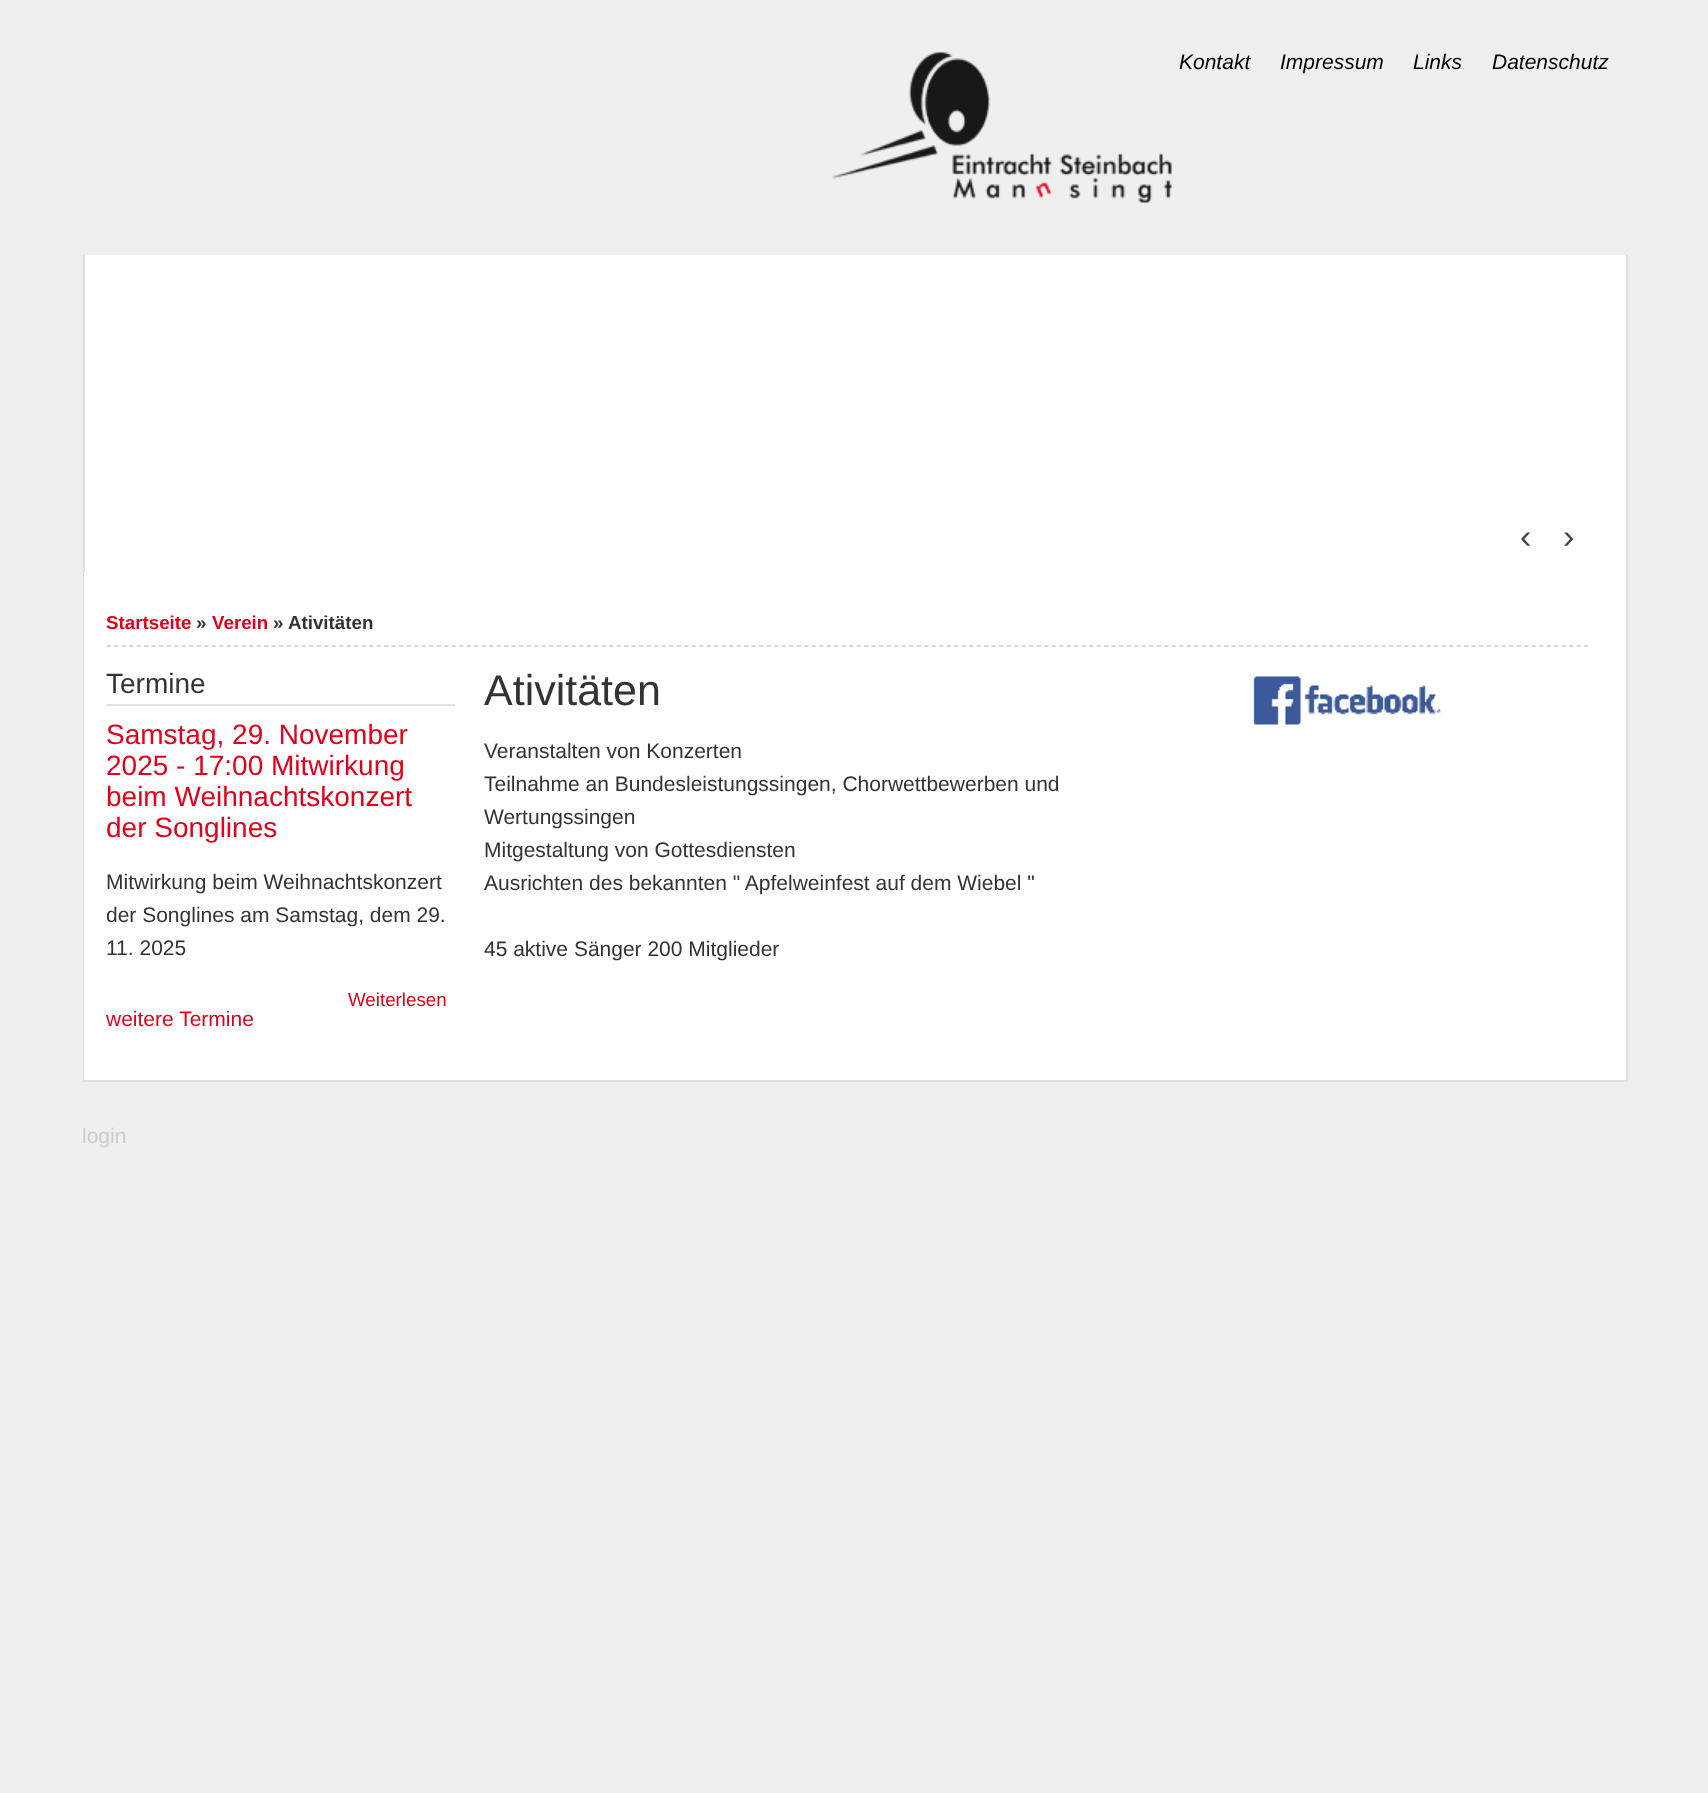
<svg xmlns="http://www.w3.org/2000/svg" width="1708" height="1793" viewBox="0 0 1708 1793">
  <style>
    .t1 { font: italic 21px Liberation Sans; fill: #000; }
    .t2 { font: 34px Liberation Sans; fill: #444; }
    .t3 { font: bold 18.75px Liberation Sans; fill: #e3001b; }
    .t4 { font: bold 18.75px Liberation Sans; fill: #333; }
    .t5 { font: 28px Liberation Sans; fill: #333; }
    .t6 { font: 28px Liberation Sans; fill: #e3001b; }
    .t7 { font: 21px Liberation Sans; fill: #333; }
    .t8 { font: 18.75px Liberation Sans; fill: #e3001b; }
    .t9 { font: 21px Liberation Sans; fill: #e3001b; }
    .t10 { font: 43px Liberation Sans; fill: #333; }
    .t11 { font: 21px Liberation Sans; fill: #ccc; }
  </style>
  <rect width="100%" height="100%" fill="#efeff0"/>
  <image x="832" y="52" width="340" height="151" href="images/1.png"/>
  <text x="1179" y="69" class="t1">Kontakt</text>
  <text x="1280" y="69" class="t1">Impressum</text>
  <text x="1413" y="69" class="t1">Links</text>
  <text x="1492" y="69" class="t1">Datenschutz</text>
  <rect x="85" y="255" width="1541" height="825" fill="#fff"/>
  <rect x="1626" y="255" width="2" height="827" fill="#dfdfdf"/>
  <rect x="83" y="1080" width="1545" height="2" fill="#dfdfdf"/>
  <rect x="83" y="255" width="2" height="827" fill="#dfdfdf"/>
  <text x="1520" y="548" class="t2">‹</text>
  <text x="1563" y="548" class="t2">›</text>
  <rect x="84" y="572" width="1" height="508" fill="#fff"/>
  <path d="M106.5 646H1588.5" fill="none" stroke="#ccc" stroke-width="1.5" stroke-dasharray="4.5 3"/>
  <text x="106" y="629" class="t3">Startseite</text>
  <text x="196" y="629" class="t4">»</text>
  <text x="212" y="629" class="t3">Verein</text>
  <text x="273" y="629" class="t4">» Ativitäten</text>
  <rect x="107" y="704" width="348" height="2" fill="#e2e2e2"/>
  <text x="106" y="693" class="t5">Termine</text>
  <text x="106" y="744" class="t6">Samstag, 29. November</text>
  <text x="106" y="775" class="t6">2025 - 17:00 Mitwirkung</text>
  <text x="106" y="806" class="t6">beim Weihnachtskonzert</text>
  <text x="106" y="837" class="t6">der Songlines</text>
  <text x="106" y="889" class="t7">Mitwirkung beim Weihnachtskonzert</text>
  <text x="106" y="922" class="t7">der Songlines am Samstag, dem 29.</text>
  <text x="106" y="955" class="t7">11. 2025</text>
  <text x="348" y="1006" class="t8">Weiterlesen</text>
  <text x="106" y="1026" class="t9">weitere Termine</text>
  <text x="484" y="705" class="t10">Ativitäten</text>
  <text x="484" y="758" class="t7">Veranstalten von Konzerten</text>
  <text x="484" y="791" class="t7">Teilnahme an Bundesleistungssingen, Chorwettbewerben und</text>
  <text x="484" y="824" class="t7">Wertungssingen</text>
  <text x="484" y="857" class="t7">Mitgestaltung von Gottesdiensten</text>
  <text x="484" y="890" class="t7">Ausrichten des bekannten " Apfelweinfest auf dem Wiebel "</text>
  <text x="484" y="956" class="t7">45 aktive Sänger 200 Mitglieder</text>
  <image x="1253" y="676" width="189" height="49" href="images/2.png"/>
  <text x="82" y="1143" class="t11">login</text>
</svg>
